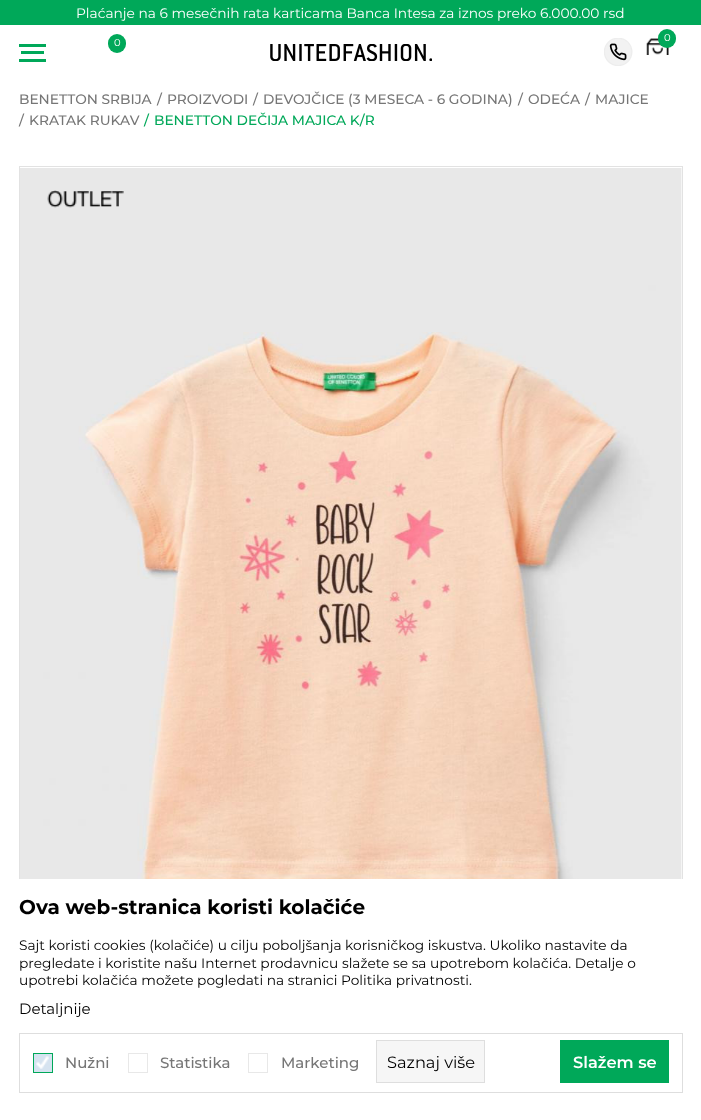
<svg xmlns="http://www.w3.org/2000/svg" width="701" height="1120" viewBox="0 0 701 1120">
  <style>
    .t1 { font: 13.75px Montserrat; fill: #fff; }
    .t2 { font: 10px Montserrat; fill: #fff; }
    .t3 { font: 500 13.75px Montserrat; fill: #767676; }
    .t4 { font: 500 13.75px Montserrat; fill: #00a859; }
    .t5 { font: bold 20px Montserrat; fill: #000; }
    .t6 { font: 13.75px Montserrat; fill: #000; }
    .t7 { font: 15px Montserrat; fill: #000; }
    .t8 { font: 500 15px Montserrat; fill: #767676; }
    .t9 { font: 16.25px Montserrat; fill: #000; }
    .t10 { font: 600 16.25px Montserrat; fill: #fff; }
  </style>
  <rect width="100%" height="100%" fill="#fff"/>
  <rect x="0" y="0" width="701" height="80" fill="#0000004d" filter="blur(0.5px)"/>
  <rect x="0" y="25" width="701" height="55" fill="#fff"/>
  <rect x="0" y="0" width="701" height="25" fill="#00a859"/>
  <text x="76" y="18" class="t1">Plaćanje na 6 mesečnih rata karticama Banca Intesa za iznos preko 6.000.00 rsd</text>
  <rect x="108" y="34" width="18" height="19" rx="9" fill="#00a859"/>
  <text x="114" y="46" class="t2">0</text>
  <image x="646" y="38" width="23" height="17" href="images/1.png"/>
  <rect x="658" y="29" width="18" height="19" rx="9" fill="#00a859"/>
  <text x="664" y="41" class="t2">0</text>
  <rect x="21" y="51" width="23" height="3" fill="#00a859"/>
  <rect x="19" y="44" width="27" height="3" fill="#00a859"/>
  <rect x="19" y="59" width="27" height="3" fill="#00a859"/>
  <image x="270" y="44" width="162" height="17" href="images/2.png"/>
  <image x="604" y="38" width="29" height="28" href="images/3.png"/>
  <text x="19" y="104" class="t3">BENETTON SRBIJA</text>
  <text x="157" y="104" class="t3">/</text>
  <text x="167" y="104" class="t3">PROIZVODI</text>
  <text x="253" y="104" class="t3">/</text>
  <text x="263" y="104" class="t3">DEVOJČICE (3 MESECA - 6 GODINA)</text>
  <text x="518" y="104" class="t3">/</text>
  <text x="528" y="104" class="t3">ODEĆA</text>
  <text x="585" y="104" class="t3">/</text>
  <text x="595" y="104" class="t3">MAJICE</text>
  <text x="19" y="125" class="t3">/</text>
  <text x="29" y="125" class="t3">KRATAK RUKAV</text>
  <text x="144" y="125" class="t4">/</text>
  <text x="154" y="125" class="t4">BENETTON DEČIJA MAJICA K/R</text>
  <rect x="19.5" y="166.5" width="663" height="883" fill="none" stroke="#e2e2e2"/>
  <image x="20" y="168" width="662" height="711" href="images/4.png"/>
  <image x="47" y="190" width="77" height="18" href="images/5.png"/>
  <rect x="19" y="879" width="664" height="171" fill="#fff"/>
  <text x="19" y="914" class="t5">Ova web-stranica koristi kolačiće</text>
  <text x="19" y="950" class="t6">Sajt koristi cookies (kolačiće) u cilju poboljšanja korisničkog iskustva. Ukoliko nastavite da</text>
  <text x="19" y="968" class="t6">pregledate i koristite našu Internet prodavnicu slažete se sa upotrebom kolačića. Detalje o</text>
  <text x="19" y="985" class="t6">upotrebi kolačića možete pogledati na stranici Politika privatnosti.</text>
  <text x="19" y="1014" class="t7">Detaljnije</text>
  <rect x="19.5" y="1033.5" width="663" height="59" fill="none" stroke="#dedede"/>
  <rect x="34" y="1054" width="18" height="18" fill="#d6e3f0"/>
  <image x="36" y="1056" width="13" height="13" href="images/6.png"/>
  <rect x="33.5" y="1053.5" width="19" height="19" fill="none" stroke="#00a859"/>
  <text x="65" y="1068" class="t8">Nužni</text>
  <rect x="128.5" y="1053.5" width="19" height="19" fill="none" stroke="#e8e8e8"/>
  <text x="160" y="1068" class="t8">Statistika</text>
  <rect x="248.5" y="1053.5" width="19" height="19" fill="none" stroke="#e8e8e8"/>
  <text x="281" y="1068" class="t8">Marketing</text>
  <rect x="376.5" y="1040.5" width="108" height="42" fill="#f6f6f6" stroke="#dedede"/>
  <text x="387" y="1068" class="t9">Saznaj više</text>
  <rect x="560" y="1040" width="109" height="43" fill="#00a859"/>
  <text x="573" y="1068" class="t10">Slažem se</text>
</svg>
